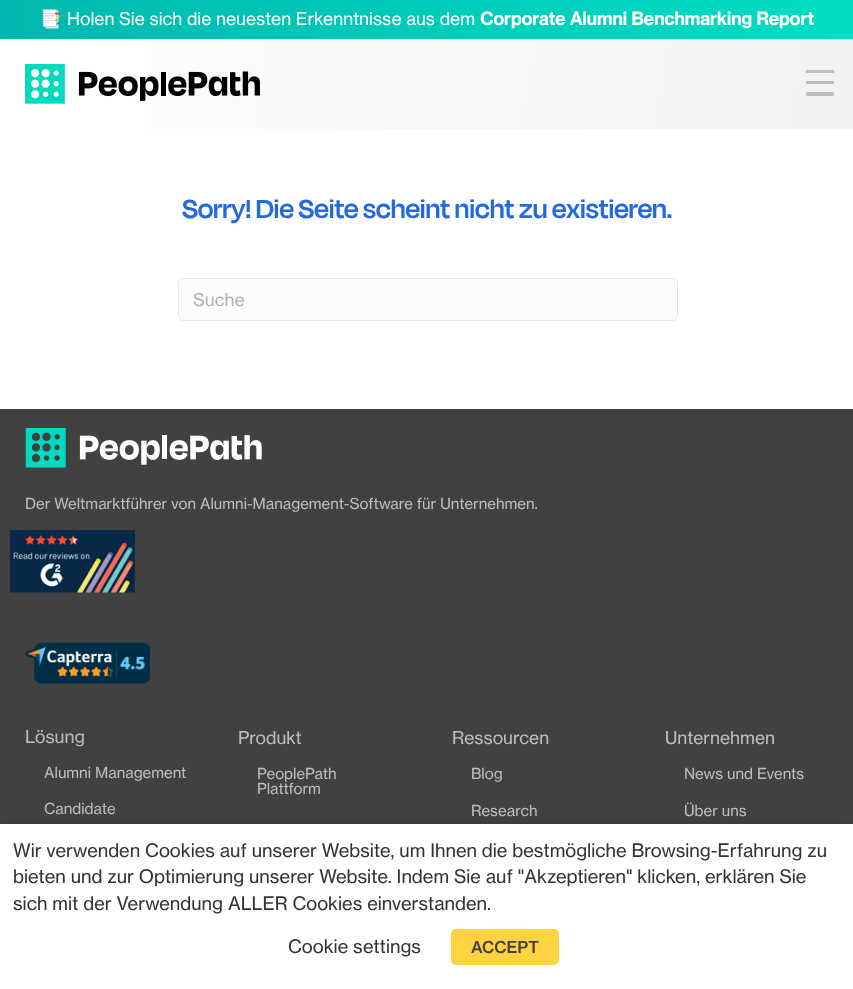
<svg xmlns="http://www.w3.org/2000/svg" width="853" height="989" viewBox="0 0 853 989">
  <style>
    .t1 { font: 17.5px Noto Color Emoji; fill: #fff; }
    .t2 { font: 17.5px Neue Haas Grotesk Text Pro; fill: #fff; }
    .t3 { font: bold 17.5px Neue Haas Grotesk Text Pro; fill: #fff; }
    .t4 { font: 600 30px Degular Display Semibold; fill: #2469e0; }
    .t5 { font: 17.5px Neue Haas Grotesk Text Pro; fill: #b1b1b1; }
    .t6 { font: 15px Neue Haas Grotesk Text Pro; fill: #bebebe; }
    .t7 { font: 17.5px Neue Haas Grotesk Text Pro; fill: #bebebe; }
    .t8 { font: 18.35px Neue Haas Grotesk Text Pro; fill: #333; }
    .t9 { font: 500 16.25px Neue Haas Grotesk Text Pro; fill: #414141; }
  </style>
  <defs>
    <linearGradient id="g1" gradientUnits="userSpaceOnUse" x1="0" y1="19" x2="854" y2="19"><stop offset="0" stop-color="#00b8af"/><stop offset="1" stop-color="#00dec3"/></linearGradient>
    <linearGradient id="g2" gradientUnits="userSpaceOnUse" x1="5.2" y1="9" x2="849" y2="158"><stop offset="0" stop-color="#fff"/><stop offset="1" stop-color="#f2f2f2"/></linearGradient>
  </defs>
  <rect width="100%" height="100%" fill="#fff"/>
  <rect x="0" y="0" width="853" height="39" fill="url(#g1)"/>
  <text x="40" y="25" class="t1">📑</text>
  <text x="67" y="25" class="t2">Holen Sie sich die neuesten Erkenntnisse aus dem</text>
  <text x="480" y="25" class="t3">Corporate Alumni Benchmarking Report</text>
  <rect x="151" y="39" width="702" height="90" fill="url(#g2)"/>
  <image x="25" y="64" width="235" height="40" href="images/1.png"/>
  <rect x="806" y="70" width="28" height="3" fill="#bebebe"/>
  <rect x="806" y="81" width="28" height="3" fill="#bebebe"/>
  <rect x="806" y="92" width="28" height="4" fill="#bebebe"/>
  <text x="182" y="218" class="t4">Sorry! Die Seite scheint nicht zu existieren.</text>
  <rect x="179" y="279" width="497" height="41" rx="4" fill="#fcfcfc"/>
  <rect x="178.5" y="278.5" width="499" height="42" rx="4.5" fill="none" stroke="#e6e6e6"/>
  <text x="193" y="306" class="t5">Suche</text>
  <rect x="0" y="409" width="853" height="415" fill="#414141"/>
  <image x="25" y="428" width="237" height="40" href="images/2.png"/>
  <text x="25" y="509" class="t6">Der Weltmarktführer von Alumni-Management-Software für Unternehmen.</text>
  <image x="10" y="530" width="125" height="63" href="images/3.png"/>
  <image x="25" y="642" width="125" height="42" href="images/4.png"/>
  <text x="25" y="743" class="t7">Lösung</text>
  <text x="44" y="778" class="t6">Alumni Management</text>
  <text x="44" y="814" class="t6">Candidate</text>
  <text x="238" y="744" class="t7">Produkt</text>
  <text x="257" y="779" class="t6">PeoplePath</text>
  <text x="257" y="794" class="t6">Plattform</text>
  <text x="452" y="744" class="t7">Ressourcen</text>
  <text x="471" y="779" class="t6">Blog</text>
  <text x="471" y="816" class="t6">Research</text>
  <text x="665" y="744" class="t7">Unternehmen</text>
  <text x="684" y="779" class="t6">News und Events</text>
  <text x="684" y="816" class="t6">Über uns</text>
  <rect x="0" y="830" width="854" height="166" fill="#00000080" filter="blur(6px)"/>
  <rect x="0" y="824" width="853" height="165" fill="#fff"/>
  <text x="13" y="857" class="t8">Wir verwenden Cookies auf unserer Website, um Ihnen die bestmögliche Browsing-Erfahrung zu</text>
  <text x="13" y="883" class="t8">bieten und zur Optimierung unserer Website. Indem Sie auf "Akzeptieren" klicken, erklären Sie</text>
  <text x="13" y="910" class="t8">sich mit der Verwendung ALLER Cookies einverstanden.</text>
  <text x="288" y="953" class="t8">Cookie settings</text>
  <rect x="451" y="929" width="108" height="36" rx="5" fill="#ffd242"/>
  <text x="471" y="953" class="t9">ACCEPT</text>
</svg>
